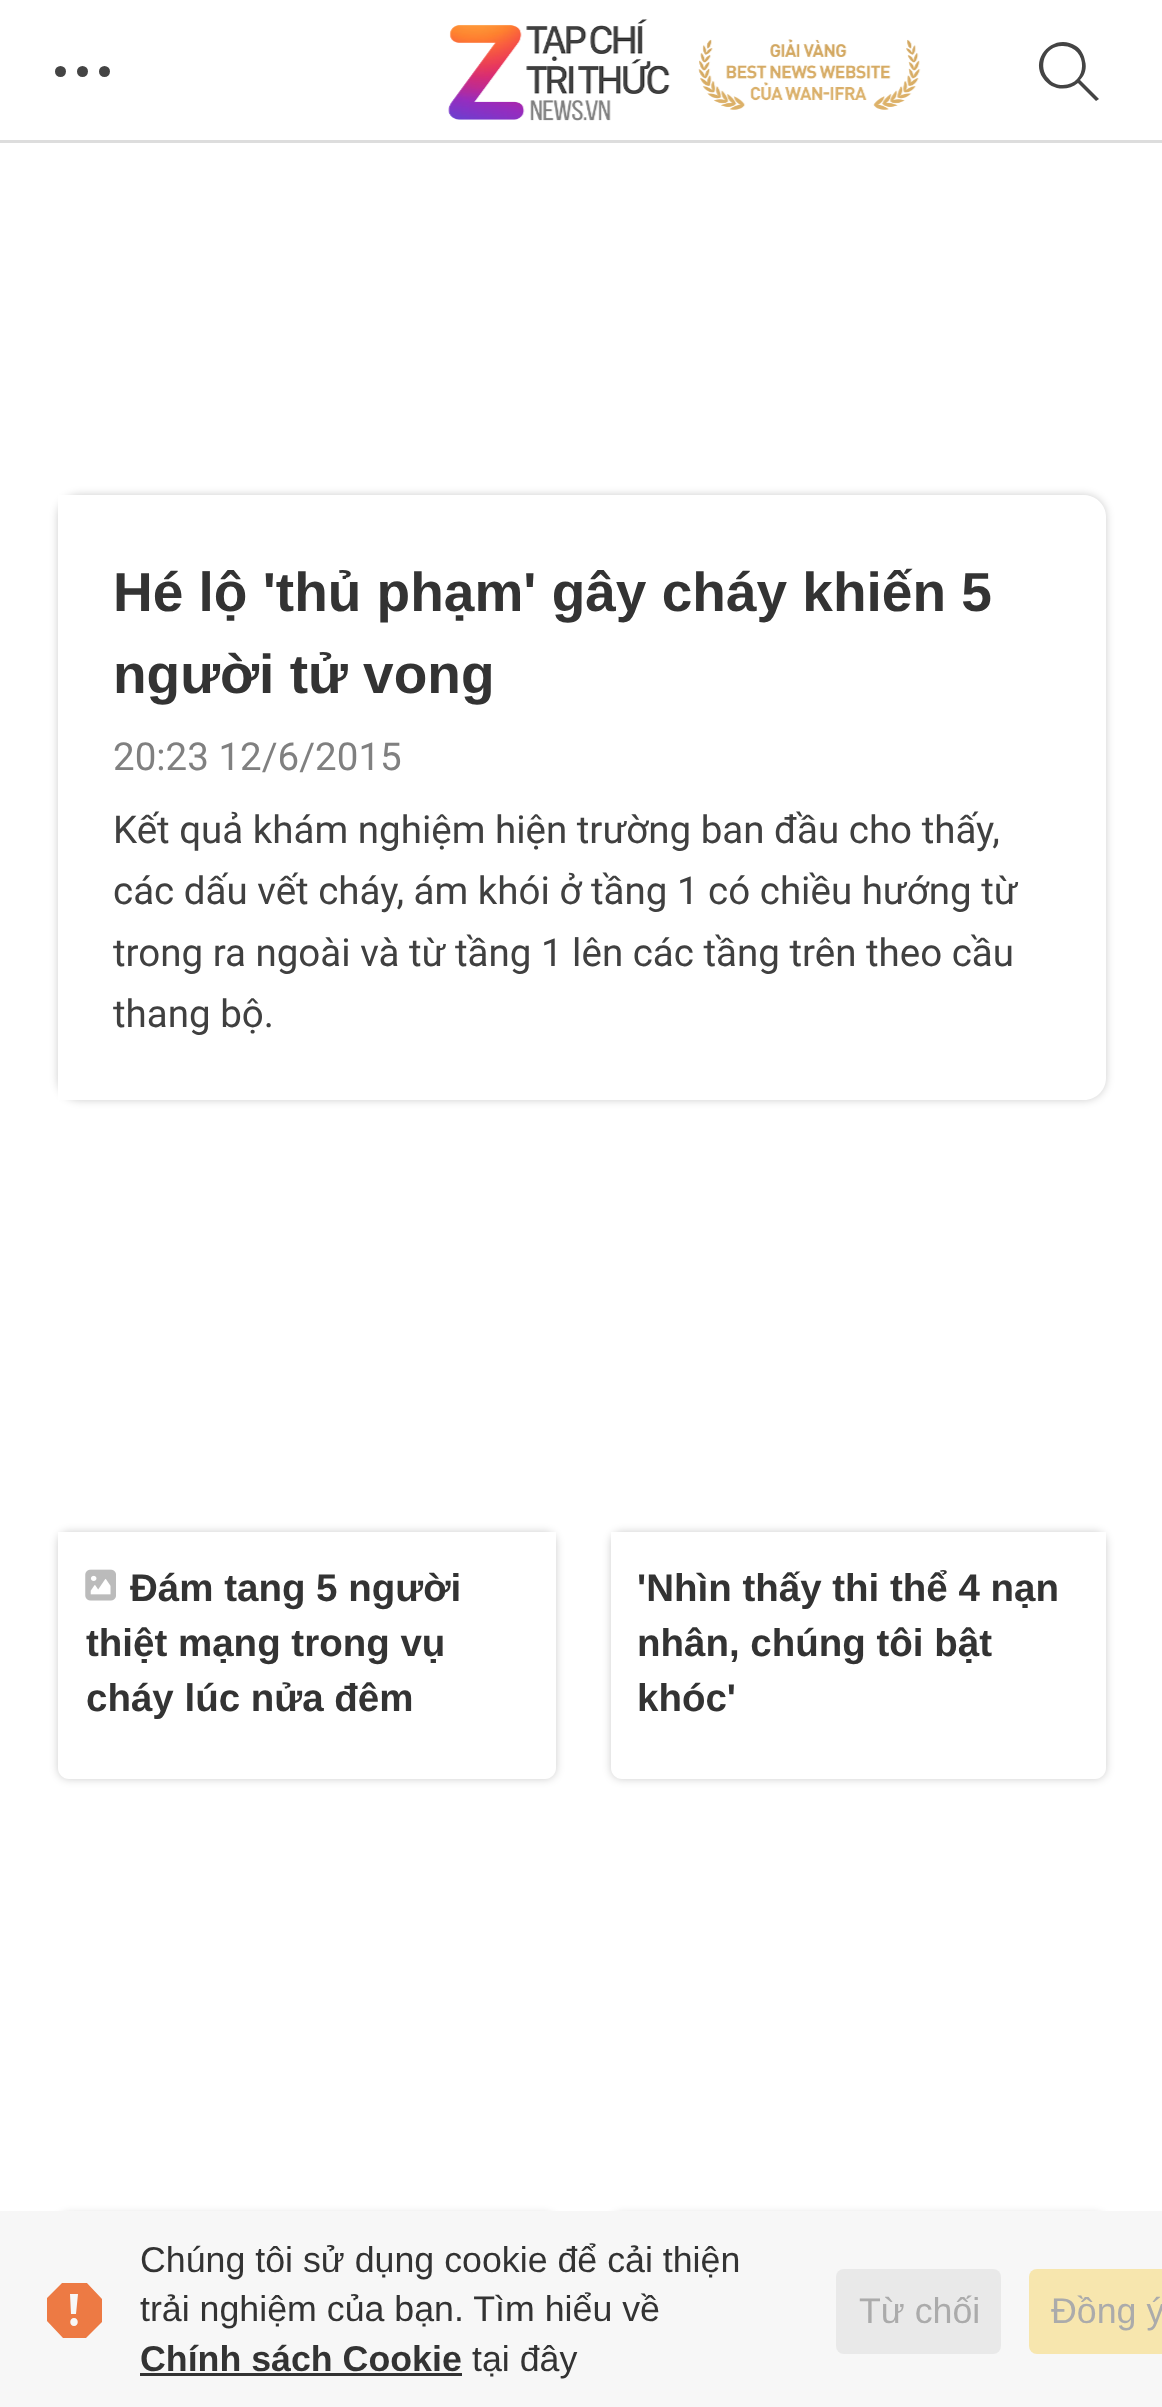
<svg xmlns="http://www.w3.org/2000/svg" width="1162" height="2407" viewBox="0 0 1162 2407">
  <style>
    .t1 { font: bold 55px Liberation Sans; fill: #333; }
    .t2 { font: 38.5px Roboto; fill: #808080; }
    .t3 { font: 38.5px Roboto; fill: #404040; }
    .t4 { font: bold 38.5px Liberation Sans; fill: #333; }
    .t5 { font: 35.75px Liberation Sans; fill: #333; }
    .t6 { font: bold 35.75px Liberation Sans; fill: #333; }
    .t7 { font: 35.75px Liberation Sans; fill: #ababab; }
  </style>
  <defs>
    <clipPath id="clip1"><path d="M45 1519H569V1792H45ZM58 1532H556V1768C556 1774 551 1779 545 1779H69C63 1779 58 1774 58 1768Z" clip-rule="evenodd"/></clipPath>
    <clipPath id="clip2"><path d="M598 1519H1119V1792H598ZM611 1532H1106V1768C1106 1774 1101 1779 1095 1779H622C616 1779 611 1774 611 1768Z" clip-rule="evenodd"/></clipPath>
    <clipPath id="clip3"><rect x="47" y="2283" width="55" height="55"/></clipPath>
  </defs>
  <rect width="100%" height="100%" fill="#fff"/>
  <rect x="0" y="140" width="1162" height="3" fill="#ddd"/>
  <circle cx="82.5" cy="71.5" r="5.5" fill="#444"/>
  <circle cx="60.5" cy="71.5" r="5.5" fill="#444"/>
  <circle cx="104.5" cy="71.5" r="5.5" fill="#444"/>
  <image x="448" y="19" width="473" height="102" href="images/1.png"/>
  <path d="M1099 99L1080 80C1085 75 1087 68 1085 61C1084 55 1081 49 1076 46C1055 32 1029 57 1043 78C1051 90 1067 92 1078 83L1096 101ZM1063 85C1057 85 1052 83 1049 79C1037 67 1045 45 1063 46C1089 47 1088 85 1063 85Z" fill="#444"/>
  <rect x="58" y="495" width="1048" height="605" rx="22" fill="#00000033" filter="blur(4px)"/>
  <path d="M58 495H1084C1096 495 1106 505 1106 517V1078C1106 1090 1096 1100 1084 1100H58Z" fill="#fff"/>
  <text x="113" y="611" class="t1">Hé lộ 'thủ phạm' gây cháy khiến 5</text>
  <text x="113" y="693" class="t1">người tử vong</text>
  <text x="113" y="770" class="t2">20:23 12/6/2015</text>
  <text x="113" y="843" class="t3">Kết quả khám nghiệm hiện trường ban đầu cho thấy,</text>
  <text x="113" y="904" class="t3">các dấu vết cháy, ám khói ở tầng 1 có chiều hướng từ</text>
  <text x="113" y="966" class="t3">trong ra ngoài và từ tầng 1 lên các tầng trên theo cầu</text>
  <text x="113" y="1027" class="t3">thang bộ.</text>
  <g clip-path="url(#clip1)">
    <rect x="58" y="1532" width="498" height="247" rx="11" fill="#00000033" filter="blur(4px)"/>
  </g>
  <image x="85" y="1569" width="31" height="32" href="images/2.png"/>
  <text x="130" y="1601" class="t4">Đám tang 5 người</text>
  <text x="86" y="1656" class="t4">thiệt mạng trong vụ</text>
  <text x="86" y="1711" class="t4">cháy lúc nửa đêm</text>
  <g clip-path="url(#clip2)">
    <rect x="611" y="1532" width="495" height="247" rx="11" fill="#00000033" filter="blur(4px)"/>
  </g>
  <text x="637" y="1601" class="t4">'Nhìn thấy thi thể 4 nạn</text>
  <text x="637" y="1656" class="t4">nhân, chúng tôi bật</text>
  <text x="637" y="1711" class="t4">khóc'</text>
  <rect x="58" y="2214" width="498" height="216" rx="11" fill="#00000033" filter="blur(4px)"/>
  <rect x="611" y="2214" width="495" height="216" rx="11" fill="#00000033" filter="blur(4px)"/>
  <rect x="0" y="2211" width="1162" height="196" fill="#f7f7f7"/>
  <g clip-path="url(#clip3)">
    <path d="M86 2282H63L47 2298V2321L63 2338H86L102 2322V2299ZM78 2294L76 2314H71L70 2294ZM74 2326C69 2326 69 2318 74 2318C79 2318 79 2326 74 2326Z" fill="#ed7a44" fill-rule="evenodd"/>
  </g>
  <text x="140" y="2272" class="t5">Chúng tôi sử dụng cookie để cải thiện</text>
  <text x="140" y="2321" class="t5">trải nghiệm của bạn. Tìm hiểu về</text>
  <text x="140" y="2371" class="t6">Chính sách Cookie</text>
  <rect x="140" y="2373" width="322" height="3" fill="#333"/>
  <text x="472" y="2371" class="t5">tại đây</text>
  <rect x="836" y="2269" width="165" height="85" rx="8" fill="#e9e9e9"/>
  <text x="859" y="2323" class="t7">Từ chối</text>
  <rect x="1029" y="2269" width="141" height="85" rx="8" fill="#f7e6ae"/>
  <text x="1051" y="2323" class="t7">Đồng ý</text>
</svg>
